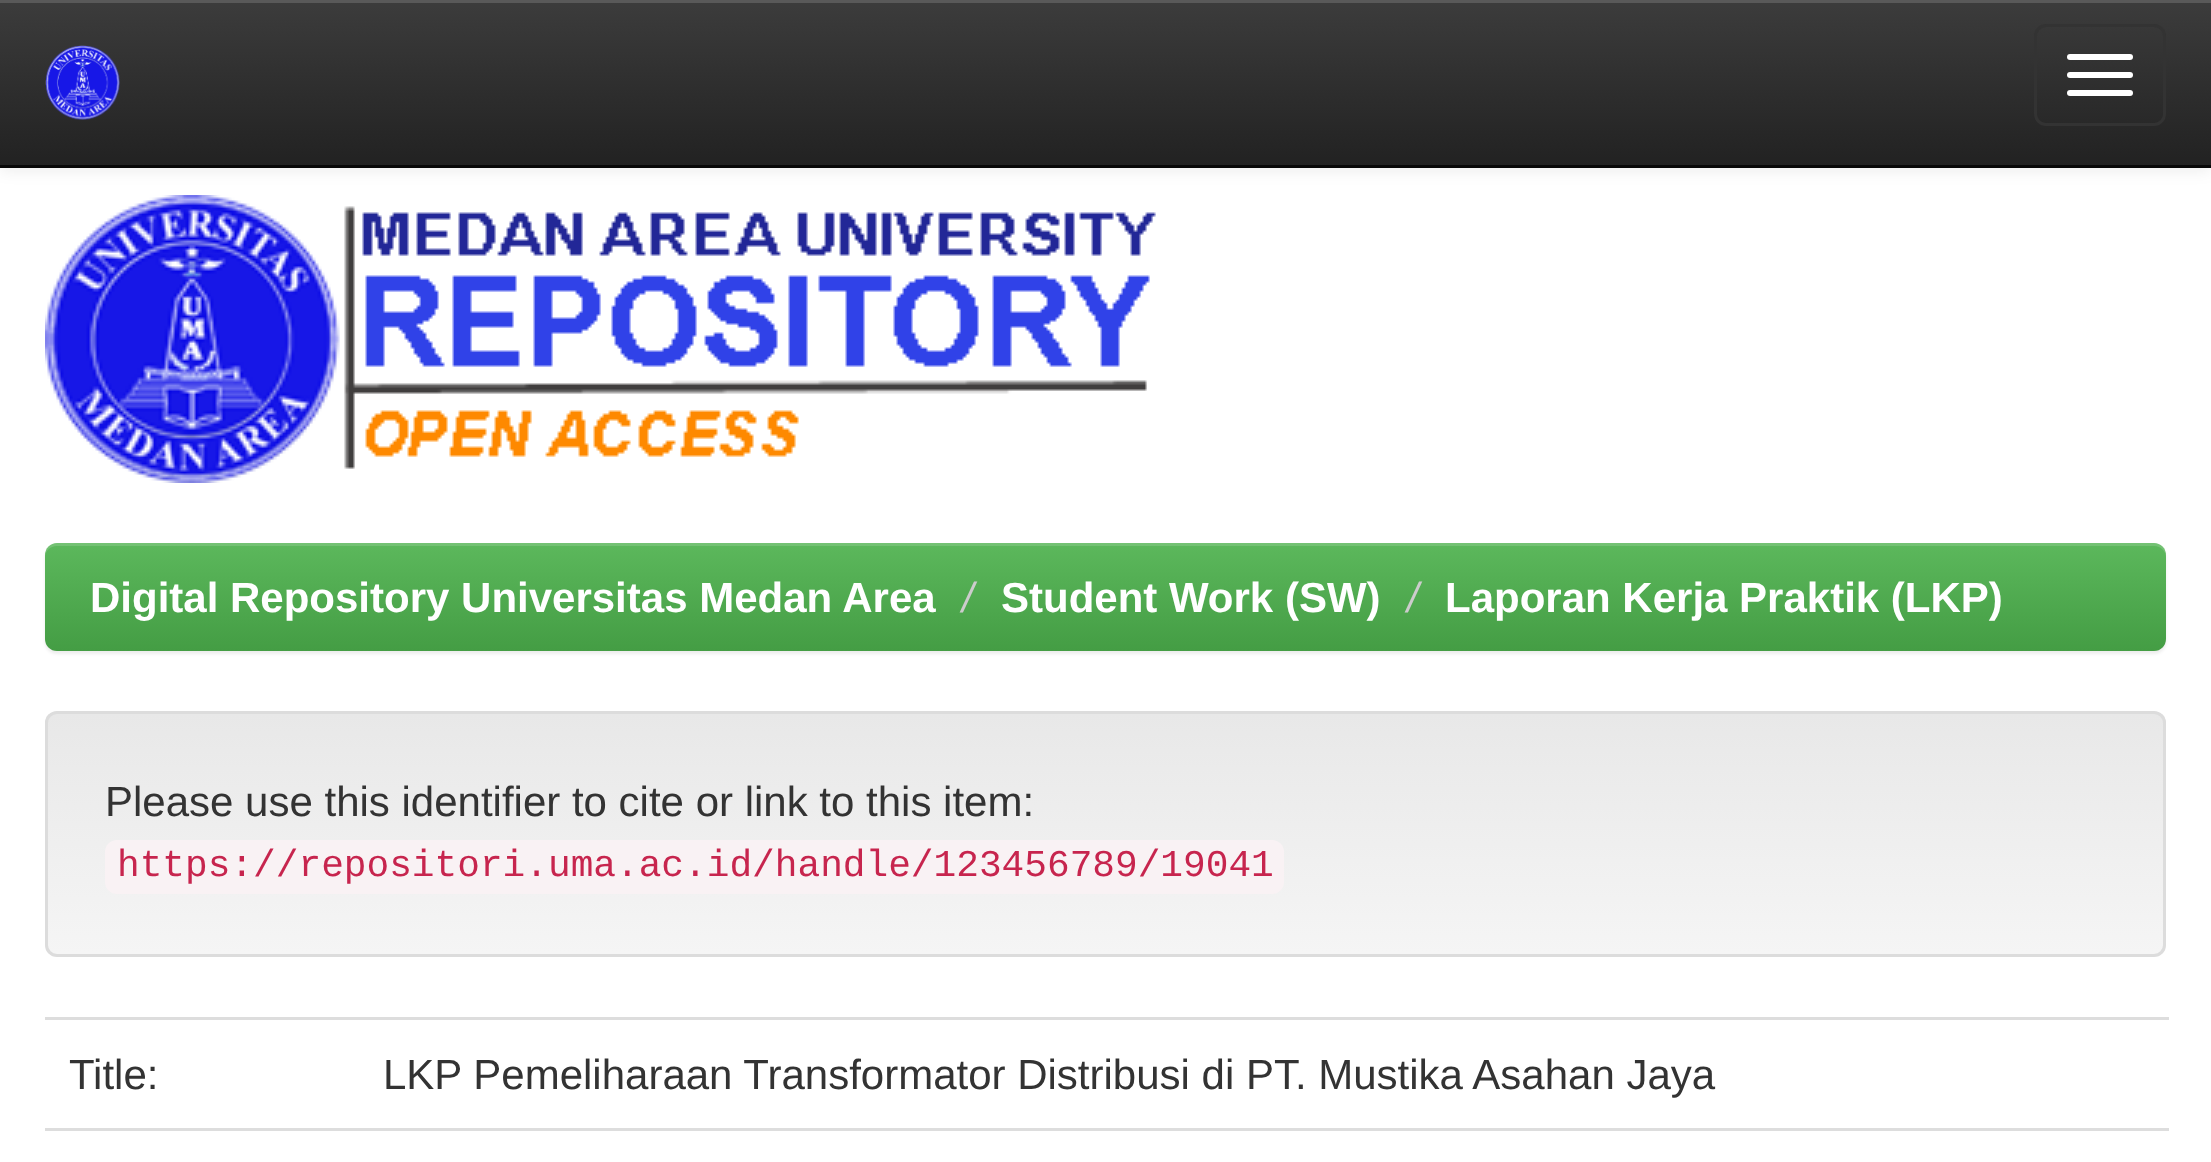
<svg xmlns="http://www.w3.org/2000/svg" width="2211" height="1162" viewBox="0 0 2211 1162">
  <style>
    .t1 { font: bold 42px Liberation Sans; fill: #fff; }
    .t2 { font: italic 42px Liberation Sans; fill: #ccc; }
    .t3 { font: 42px Liberation Sans; fill: #333; }
    .t4 { font: 37.8px Liberation Mono; fill: #c7254e; }
  </style>
  <defs>
    <linearGradient id="g1" gradientUnits="userSpaceOnUse" x1="1106" y1="0" x2="1106" y2="165"><stop offset="0" stop-color="#3c3c3c"/><stop offset="1" stop-color="#222"/></linearGradient>
    <linearGradient id="g2" gradientUnits="userSpaceOnUse" x1="1106" y1="543" x2="1106" y2="651"><stop offset="0" stop-color="#5cb85c"/><stop offset="1" stop-color="#449d44"/></linearGradient>
    <clipPath id="clip1"><rect x="45" y="711" width="2121" height="246" rx="12"/></clipPath>
    <linearGradient id="g3" gradientUnits="userSpaceOnUse" x1="1106" y1="714" x2="1106" y2="954"><stop offset="0" stop-color="#e8e8e8"/><stop offset="1" stop-color="#f5f5f5"/></linearGradient>
  </defs>
  <rect width="100%" height="100%" fill="#fff"/>
  <rect x="0" y="3" width="2211" height="168" fill="#00000012" filter="blur(7.5px)"/>
  <rect x="0" y="3" width="2211" height="162" fill="url(#g1)"/>
  <rect x="0" y="0" width="2211" height="3" fill="#595959"/>
  <rect x="0" y="165" width="2211" height="3" fill="#080808"/>
  <image x="45" y="45" width="75" height="75" href="images/1.png"/>
  <rect x="2035.5" y="25.5" width="129" height="99" rx="10.5" fill="none" stroke="#333" stroke-width="3"/>
  <rect x="2067" y="54" width="66" height="6" rx="3" fill="#fff"/>
  <rect x="2067" y="72" width="66" height="6" rx="3" fill="#fff"/>
  <rect x="2067" y="90" width="66" height="6" rx="3" fill="#fff"/>
  <image x="45" y="195" width="1111" height="288" href="images/2.png"/>
  <rect x="45" y="546" width="2121" height="108" rx="12" fill="#00000012" filter="blur(1.5px)"/>
  <rect x="45" y="543" width="2121" height="108" rx="12" fill="url(#g2)"/>
  <path d="M57 546H2154C2161 546 2166 551 2166 558V555C2166 548 2161 543 2154 543H57C50 543 45 548 45 555V558C45 551 50 546 57 546Z" fill="#ffffff26"/>
  <text x="90" y="612" class="t1">Digital Repository Universitas Medan Area</text>
  <text x="962" y="612" class="t2">/</text>
  <text x="1001" y="612" class="t1">Student Work (SW)</text>
  <text x="1407" y="612" class="t2">/</text>
  <text x="1445" y="612" class="t1">Laporan Kerja Praktik (LKP)</text>
  <g clip-path="url(#clip1)">
    <rect x="45" y="714" width="2121" height="240" fill="url(#g3)"/>
  </g>
  <rect x="46.5" y="712.5" width="2118" height="243" rx="10.5" fill="none" stroke="#dcdcdc" stroke-width="3"/>
  <text x="105" y="816" class="t3">Please use this identifier to cite or link to this item:</text>
  <rect x="105" y="840" width="1179" height="54" rx="12" fill="#f9f2f4"/>
  <text x="117" y="876" class="t4">https://repositori.uma.ac.id/handle/123456789/19041</text>
  <text x="69" y="1089" class="t3">Title:</text>
  <rect x="45" y="1017" width="2124" height="3" fill="#ddd"/>
  <text x="383" y="1089" class="t3">LKP Pemeliharaan Transformator Distribusi di PT. Mustika Asahan Jaya</text>
  <rect x="45" y="1128" width="2124" height="3" fill="#ddd"/>
</svg>
